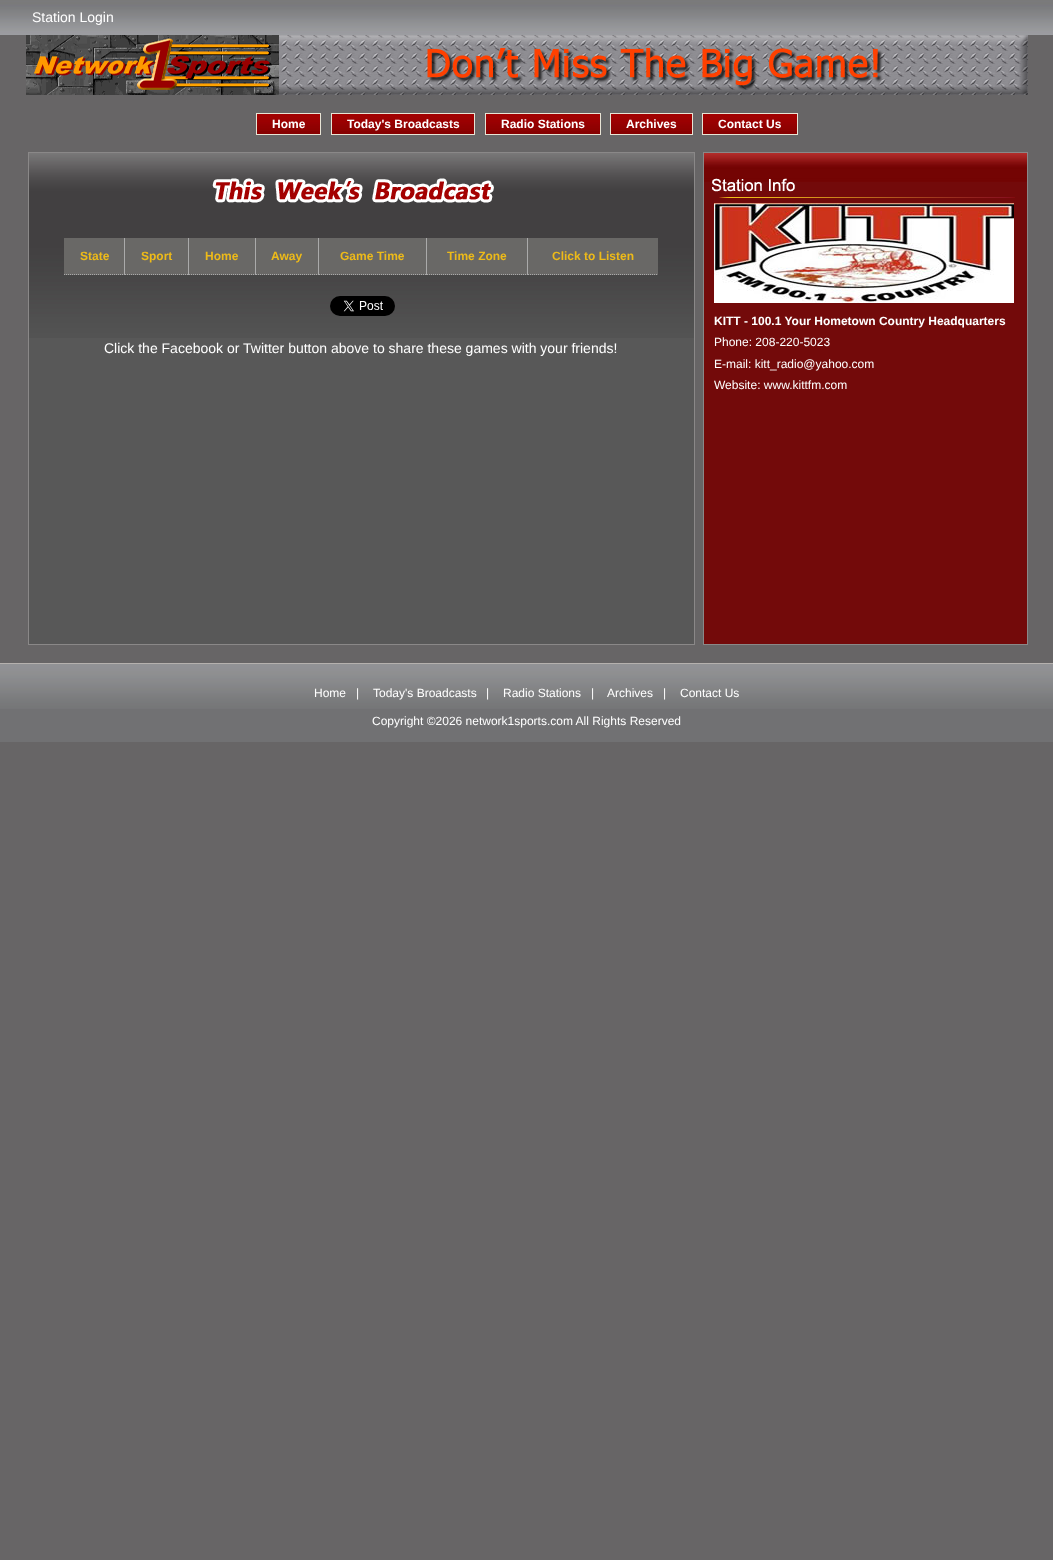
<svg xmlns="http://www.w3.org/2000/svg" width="1053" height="1560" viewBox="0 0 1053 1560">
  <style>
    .t1 { font: 14px Liberation Sans; fill: #fff; }
    .t2 { font: bold 12px Liberation Sans; fill: #fff; }
    .t3 { font: bold 12px Liberation Sans; fill: #edba19; }
    .t4 { font: 12px Liberation Sans; fill: #fff; }
  </style>
  <rect width="100%" height="100%" fill="#676566"/>
  <image x="0" y="0" width="1053" height="35" href="images/1.png"/>
  <text x="32" y="22" class="t1">Station Login</text>
  <image x="26" y="35" width="1002" height="60" href="images/2.png"/>
  <image x="257" y="114" width="63" height="17" href="images/3.png"/>
  <image x="332" y="114" width="142" height="17" href="images/4.png"/>
  <image x="486" y="114" width="114" height="17" href="images/5.png"/>
  <image x="611" y="114" width="81" height="17" href="images/6.png"/>
  <image x="703" y="114" width="94" height="17" href="images/7.png"/>
  <rect x="257" y="131" width="63" height="3" fill="#870000"/>
  <rect x="256.5" y="113.5" width="64" height="21" fill="none" stroke="#e8e4d5"/>
  <text x="272" y="128" class="t2">Home</text>
  <rect x="332" y="131" width="142" height="3" fill="#870000"/>
  <rect x="331.5" y="113.5" width="143" height="21" fill="none" stroke="#e8e4d5"/>
  <text x="347" y="128" class="t2">Today's Broadcasts</text>
  <rect x="486" y="131" width="114" height="3" fill="#870000"/>
  <rect x="485.5" y="113.5" width="115" height="21" fill="none" stroke="#e8e4d5"/>
  <text x="501" y="128" class="t2">Radio Stations</text>
  <rect x="611" y="131" width="81" height="3" fill="#870000"/>
  <rect x="610.5" y="113.5" width="82" height="21" fill="none" stroke="#e8e4d5"/>
  <text x="626" y="128" class="t2">Archives</text>
  <rect x="703" y="131" width="94" height="3" fill="#870000"/>
  <rect x="702.5" y="113.5" width="95" height="21" fill="none" stroke="#e8e4d5"/>
  <text x="718" y="128" class="t2">Contact Us</text>
  <rect x="29" y="338" width="665" height="306" fill="#585858"/>
  <image x="29" y="153" width="665" height="185" href="images/8.png"/>
  <rect x="28.5" y="152.5" width="666" height="492" fill="none" stroke="#8a8888"/>
  <image x="212" y="178" width="282" height="25" href="images/9.png"/>
  <rect x="64" y="238" width="594" height="37" fill="#696866"/>
  <rect x="124" y="238" width="1" height="37" fill="#aaa"/>
  <path d="M64 274.5H125" fill="none" stroke="#aaa" stroke-dasharray="1 1"/>
  <text x="80" y="260" class="t3">State</text>
  <rect x="188" y="238" width="1" height="37" fill="#aaa"/>
  <path d="M125 274.5H189" fill="none" stroke="#aaa" stroke-dasharray="1 1"/>
  <text x="141" y="260" class="t3">Sport</text>
  <rect x="255" y="238" width="1" height="37" fill="#aaa"/>
  <path d="M189 274.5H256" fill="none" stroke="#aaa" stroke-dasharray="1 1"/>
  <text x="205" y="260" class="t3">Home</text>
  <rect x="318" y="238" width="1" height="37" fill="#aaa"/>
  <path d="M256 274.5H319" fill="none" stroke="#aaa" stroke-dasharray="1 1"/>
  <text x="271" y="260" class="t3">Away</text>
  <rect x="426" y="238" width="1" height="37" fill="#aaa"/>
  <path d="M319 274.5H427" fill="none" stroke="#aaa" stroke-dasharray="1 1"/>
  <text x="340" y="260" class="t3">Game Time</text>
  <rect x="527" y="238" width="1" height="37" fill="#aaa"/>
  <path d="M427 274.5H528" fill="none" stroke="#aaa" stroke-dasharray="1 1"/>
  <text x="447" y="260" class="t3">Time Zone</text>
  <path d="M528 274.5H658" fill="none" stroke="#aaa" stroke-dasharray="1 1"/>
  <text x="552" y="260" class="t3">Click to Listen</text>
  <image x="330" y="296" width="65" height="20" href="images/10.png"/>
  <text x="104" y="353" class="t1">Click the Facebook or Twitter button above to share these games with your friends!</text>
  <rect x="704" y="182" width="323" height="462" fill="#730a0a"/>
  <image x="704" y="153" width="323" height="29" href="images/11.png"/>
  <rect x="703.5" y="152.5" width="324" height="492" fill="none" stroke="#8a8888"/>
  <image x="719" y="197" width="296" height="1" href="images/12.png"/>
  <image x="712" y="178" width="83" height="14" href="images/13.png"/>
  <image x="714" y="203" width="300" height="100" href="images/14.png"/>
  <text x="714" y="325" class="t2">KITT - 100.1 Your Hometown Country Headquarters</text>
  <text x="714" y="346" class="t4">Phone: 208-220-5023</text>
  <text x="714" y="368" class="t4">E-mail: kitt_radio@yahoo.com</text>
  <text x="714" y="389" class="t4">Website: www.kittfm.com</text>
  <rect x="0" y="709" width="1053" height="33" fill="#717173"/>
  <image x="0" y="664" width="1053" height="45" href="images/15.png"/>
  <rect x="0" y="663" width="1053" height="1" fill="#b5b1ae"/>
  <text x="314" y="697" class="t4">Home</text>
  <text x="356" y="697" class="t4">|</text>
  <text x="373" y="697" class="t4">Today's Broadcasts</text>
  <text x="486" y="697" class="t4">|</text>
  <text x="503" y="697" class="t4">Radio Stations</text>
  <text x="591" y="697" class="t4">|</text>
  <text x="607" y="697" class="t4">Archives</text>
  <text x="663" y="697" class="t4">|</text>
  <text x="680" y="697" class="t4">Contact Us</text>
  <text x="372" y="725" class="t4">Copyright ©2026 network1sports.com All Rights Reserved</text>
</svg>
